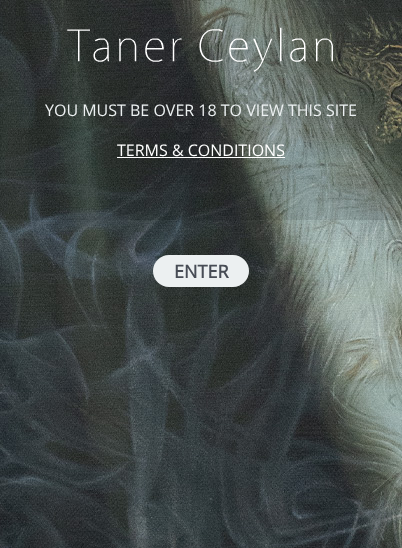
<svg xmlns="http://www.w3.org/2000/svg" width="402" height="548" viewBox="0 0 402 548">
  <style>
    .t1 { font: 16px Open Sans; fill: #ecf0f1; }
    .t2 { font: 16px Open Sans; fill: #fff; }
    .t3 { font: bold 18px Open Sans; fill: #474c55; }
  </style>
  <rect width="100%" height="100%" fill="#fff"/>
  <image x="0" y="0" width="402" height="548" href="images/1.png"/>
  <rect x="0" y="0" width="402" height="220" fill="#0000001a"/>
  <image x="67" y="27" width="266" height="45" href="images/2.png"/>
  <text x="45" y="116" class="t1">YOU MUST BE OVER 18 TO VIEW THIS SITE</text>
  <text x="117" y="156" class="t2">TERMS &amp; CONDITIONS</text>
  <rect x="117" y="157" width="168" height="1" fill="#fff"/>
  <rect x="153" y="255" width="96" height="32" rx="16" fill="#ecf0f1"/>
  <text x="174" y="278" class="t3">ENTER</text>
</svg>
